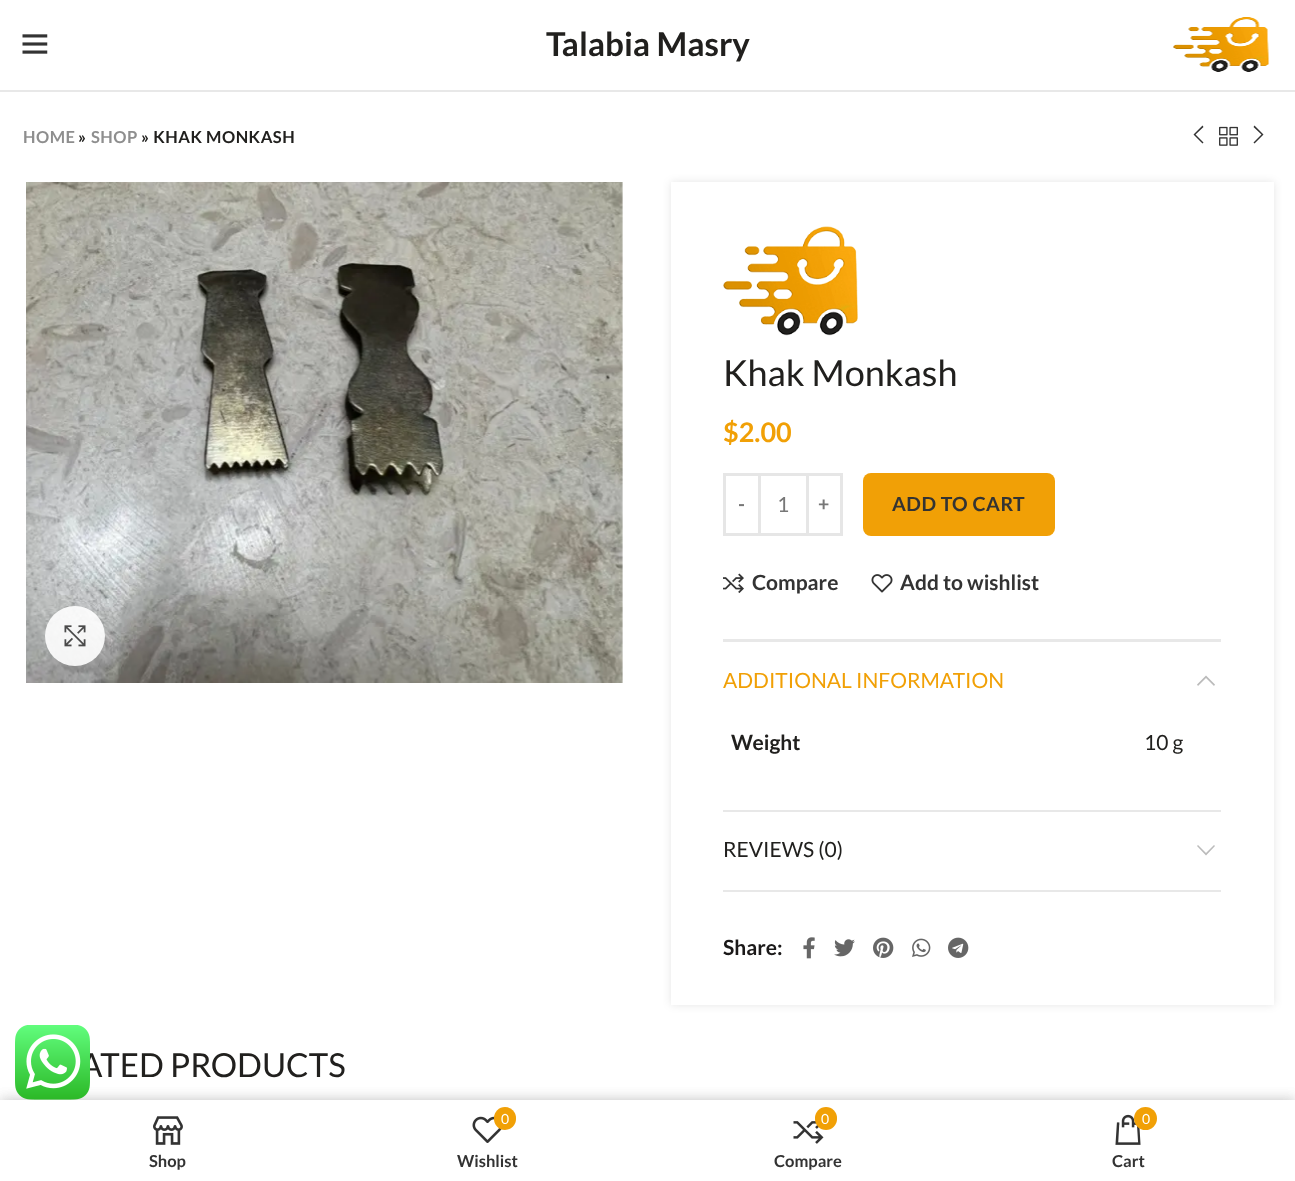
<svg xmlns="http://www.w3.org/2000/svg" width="1295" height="1181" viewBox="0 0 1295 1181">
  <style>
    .t1 { font: bold 33px Lato; fill: #21201e; }
    .t2 { font: bold 16.5px Lato; letter-spacing: 0.5px; fill: #8e8e8e; }
    .t3 { font: bold 16.5px Lato; letter-spacing: 0.5px; fill: #21201e; }
    .t4 { font: 36px Lato; fill: #21201e; }
    .t5 { font: bold 27px Lato; fill: #f1a006; }
    .t6 { font: bold 19.5px Lato; letter-spacing: 0.5px; fill: #777; }
    .t7 { font: 21px Lato; fill: #777; }
    .t8 { font: bold 19.5px Lato; letter-spacing: 0.5px; fill: #333; }
    .t9 { font: bold 21px Lato; fill: #333; }
    .t10 { font: 21px Lato; fill: #f1a006; }
    .t11 { font: bold 21px Lato; fill: #21201e; }
    .t12 { font: 21px Lato; fill: #21201e; }
    .t13 { font: bold 21px Lato; fill: #1b1919; }
    .t14 { font: 33px Lato; fill: #21201e; }
    .t15 { font: bold 16.5px Lato; fill: #333; }
    .t16 { font: 14px Lato; fill: #fff; }
  </style>
  <rect width="100%" height="100%" fill="#fff"/>
  <rect x="0" y="90" width="1295" height="2" fill="#e8e8e8"/>
  <image x="22" y="34" width="26" height="20" href="images/1.png"/>
  <text x="546" y="56" class="t1">Talabia Masry</text>
  <image x="1173" y="17" width="97" height="55" href="images/2.png"/>
  <text x="23" y="143" class="t2">HOME</text>
  <text x="78" y="143" class="t3">»</text>
  <text x="91" y="143" class="t2">SHOP</text>
  <text x="141" y="143" class="t3">» KHAK MONKASH</text>
  <path d="M1203.5 127L1195.5 134.5L1203.5 142.5L1202.5 143.5L1193.5 134.5L1202.5 125.5Z" fill="#333"/>
  <image x="1219" y="126" width="19" height="20" href="images/3.png"/>
  <path d="M1254.5 125.5L1263.5 134.5L1254.5 143.5L1253.5 142.5L1261.5 134.5L1253.5 127Z" fill="#333"/>
  <image x="26" y="182" width="597" height="501" href="images/4.png"/>
  <circle cx="75" cy="636" r="30" fill="#ffffffe6"/>
  <image x="64" y="625" width="22" height="22" href="images/5.png"/>
  <rect x="671" y="182" width="603" height="823" fill="#0000001a" filter="blur(4px)"/>
  <rect x="671" y="182" width="603" height="823" fill="#fff"/>
  <image x="723" y="226" width="135" height="110" href="images/6.png"/>
  <text x="723" y="386" class="t4">Khak Monkash</text>
  <text x="723" y="442" class="t5">$2.00</text>
  <rect x="724.5" y="474.5" width="35" height="60" fill="none" stroke="#e6e6e6" stroke-width="3"/>
  <text x="738" y="511" class="t6">-</text>
  <rect x="761" y="473" width="45" height="3" fill="#e6e6e6"/>
  <rect x="761" y="533" width="45" height="3" fill="#e6e6e6"/>
  <text x="777" y="512" class="t7">1</text>
  <rect x="807.5" y="474.5" width="34" height="60" fill="none" stroke="#e6e6e6" stroke-width="3"/>
  <text x="818" y="511" class="t6">+</text>
  <rect x="863" y="473" width="192" height="63" rx="8" fill="#f1a006"/>
  <text x="892" y="511" class="t8">ADD TO CART</text>
  <image x="723" y="573" width="21" height="20" href="images/7.png"/>
  <text x="752" y="590" class="t9">Compare</text>
  <image x="871" y="574" width="22" height="19" href="images/8.png"/>
  <text x="900" y="590" class="t9">Add to wishlist</text>
  <rect x="723" y="639" width="498" height="3" fill="#e8e8e8"/>
  <rect x="723" y="810" width="498" height="2" fill="#e8e8e8"/>
  <text x="723" y="688" class="t10">ADDITIONAL INFORMATION</text>
  <path d="M1198 686L1197 684.5L1206 675.5L1215 684.5L1214 686L1206 678Z" fill="#bbb"/>
  <text x="731" y="750" class="t11">Weight</text>
  <text x="1144" y="750" class="t12">10 g</text>
  <rect x="723" y="890" width="498" height="2" fill="#e8e8e8"/>
  <text x="723" y="857" class="t12">REVIEWS (0)</text>
  <path d="M1214 845L1215 846L1206 855.5L1197 846L1198 845L1206 853Z" fill="#bbb"/>
  <text x="723" y="955" class="t13">Share:</text>
  <image x="803" y="937" width="12" height="22" href="images/9.png"/>
  <image x="834" y="939" width="21" height="18" href="images/10.png"/>
  <image x="873" y="937" width="21" height="21" href="images/11.png"/>
  <image x="912" y="938" width="19" height="19" href="images/12.png"/>
  <image x="948" y="937" width="21" height="21" href="images/13.png"/>
  <text x="80" y="1077" class="t14">ATED PRODUCTS</text>
  <rect x="0" y="1100" width="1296" height="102" fill="#0000001f" filter="blur(7px)"/>
  <rect x="0" y="1100" width="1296" height="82" fill="#0000001f" filter="blur(7px)"/>
  <image x="15" y="1025" width="75" height="75" href="images/14.png"/>
  <rect x="0" y="1100" width="1295" height="81" fill="#fff"/>
  <image x="153" y="1116" width="30" height="29" href="images/15.png"/>
  <text x="149" y="1167" class="t15">Shop</text>
  <image x="472" y="1116" width="30" height="27" href="images/16.png"/>
  <rect x="494" y="1107" width="22" height="23" rx="11" fill="#f1a006"/>
  <text x="501" y="1124" class="t16">0</text>
  <text x="457" y="1167" class="t15">Wishlist</text>
  <image x="793" y="1116" width="31" height="28" href="images/17.png"/>
  <rect x="815" y="1107" width="22" height="23" rx="11" fill="#f1a006"/>
  <text x="821" y="1124" class="t16">0</text>
  <text x="774" y="1167" class="t15">Compare</text>
  <image x="1115" y="1114" width="26" height="31" href="images/18.png"/>
  <circle cx="1145.5" cy="1118.5" r="11.5" fill="#f1a006"/>
  <text x="1142" y="1124" class="t16">0</text>
  <text x="1112" y="1167" class="t15">Cart</text>
</svg>
